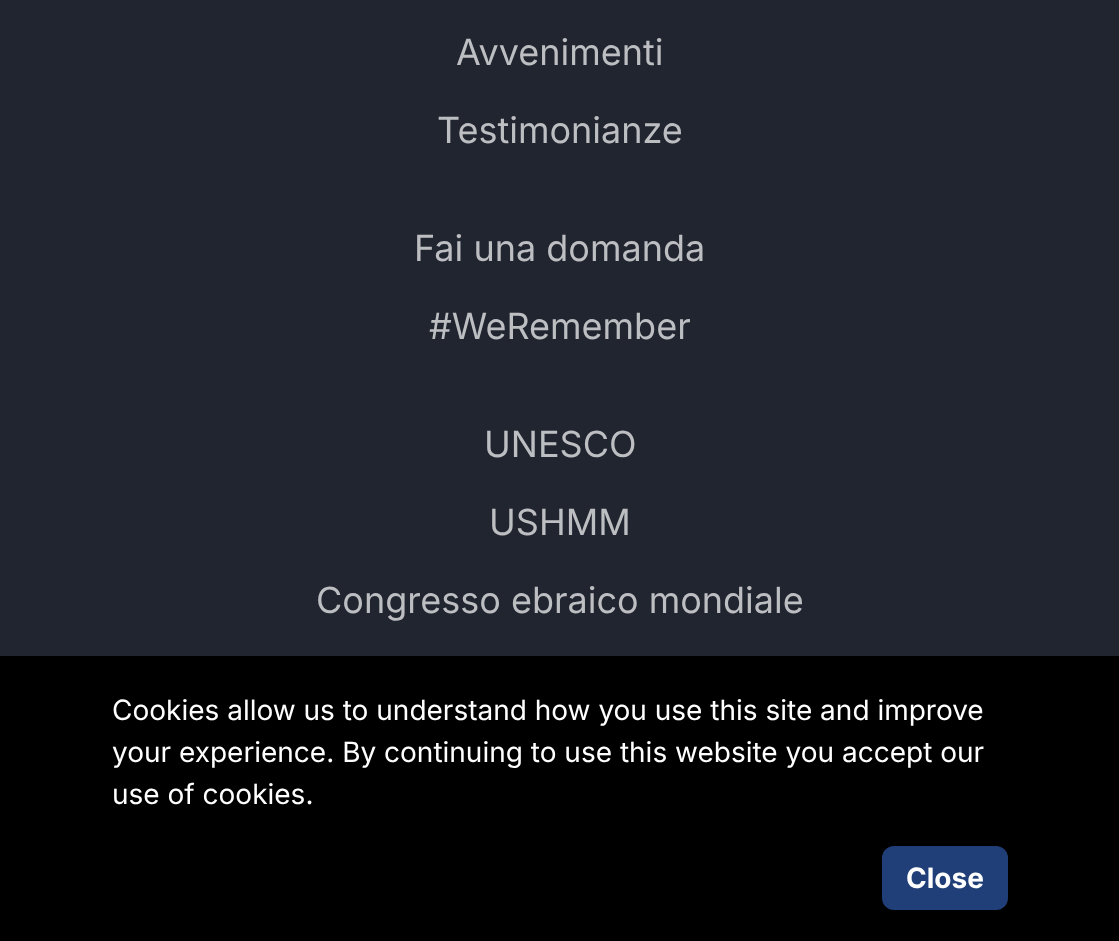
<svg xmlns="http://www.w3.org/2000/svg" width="1119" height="941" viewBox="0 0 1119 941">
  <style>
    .t1 { font: 36px Inter; fill: #bcbec1; }
    .t2 { font: 28px Inter; fill: #fff; }
    .t3 { font: bold 28px Inter; fill: #fff; }
  </style>
  <rect width="100%" height="100%" fill="#212530"/>
  <text x="456" y="65" class="t1">Avvenimenti</text>
  <text x="437" y="143" class="t1">Testimonianze</text>
  <text x="414" y="261" class="t1">Fai una domanda</text>
  <text x="429" y="339" class="t1">#WeRemember</text>
  <text x="484" y="457" class="t1">UNESCO</text>
  <text x="489" y="535" class="t1">USHMM</text>
  <text x="316" y="613" class="t1">Congresso ebraico mondiale</text>
  <rect x="0" y="656" width="1119" height="285" fill="#000"/>
  <text x="112" y="720" class="t2">Cookies allow us to understand how you use this site and improve</text>
  <text x="112" y="762" class="t2">your experience. By continuing to use this website you accept our</text>
  <text x="112" y="804" class="t2">use of cookies.</text>
  <rect x="882" y="846" width="126" height="64" rx="12" fill="#203f78"/>
  <text x="906" y="888" class="t3">Close</text>
</svg>
